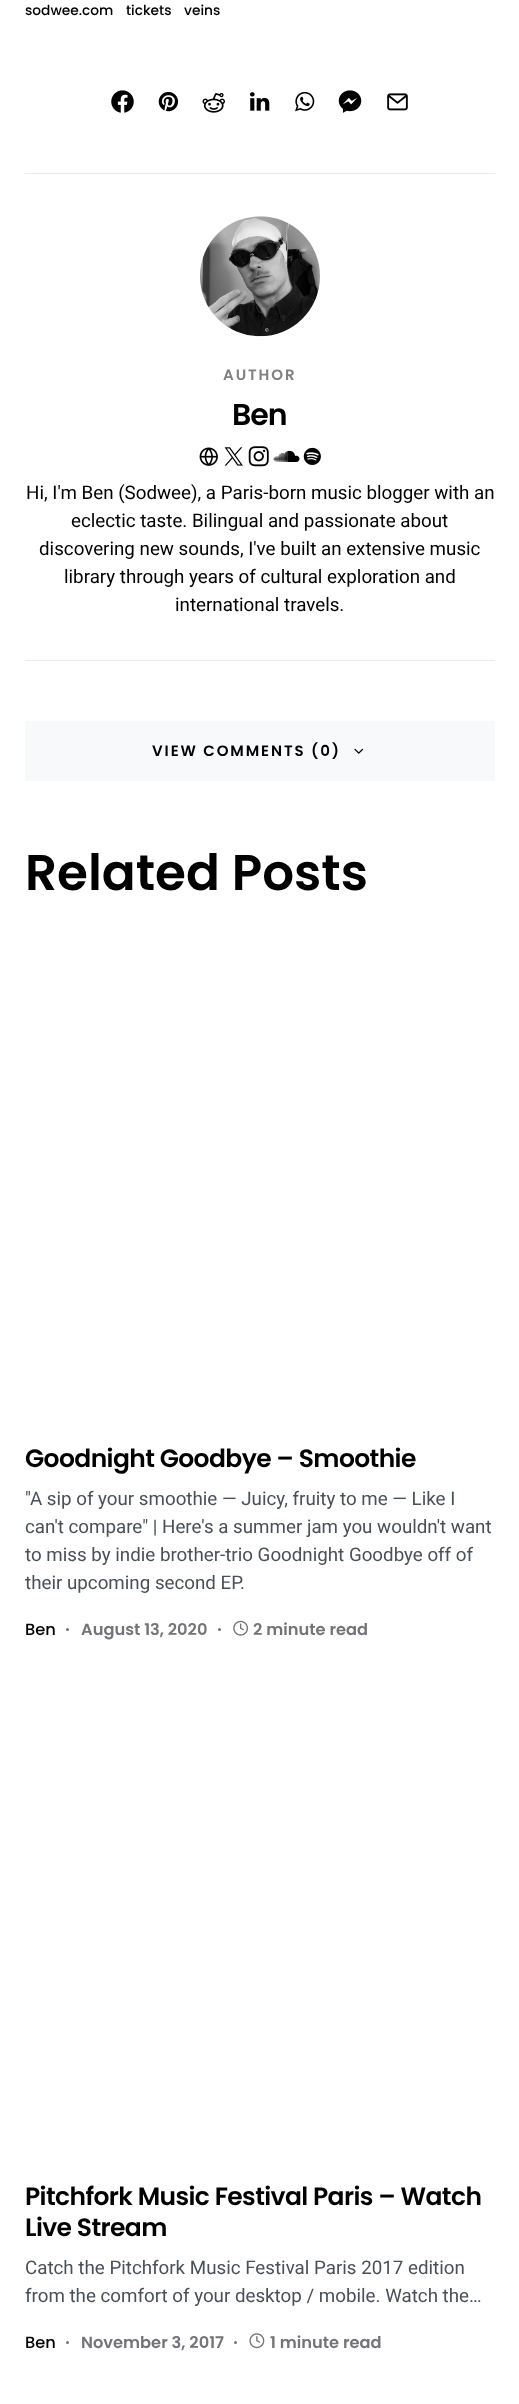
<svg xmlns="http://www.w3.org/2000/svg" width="519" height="2404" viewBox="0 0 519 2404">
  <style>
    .t1 { font: 500 13.75px Poppins; fill: #000; }
    .t2 { font: 600 15px Poppins; letter-spacing: 1.9px; fill: #818181; }
    .t3 { font: 600 30px Poppins; letter-spacing: -1px; fill: #000; }
    .t4 { font: 18.75px Roboto; fill: #000; }
    .t5 { font: 600 15px Poppins; letter-spacing: 1.9px; fill: #000; }
    .t6 { font: 600 50px Poppins; fill: #000; }
    .t7 { font: 600 25px Poppins; letter-spacing: -0.6px; fill: #000; }
    .t8 { font: 18.75px Roboto; fill: #495057; }
    .t9 { font: 500 16.25px Poppins; fill: #000; }
    .t10 { font: 600 16.25px Poppins; fill: #737378; }
  </style>
  <rect width="100%" height="100%" fill="#fff"/>
  <text x="25" y="15" class="t1">sodwee.com</text>
  <text x="126" y="15" class="t1">tickets</text>
  <text x="184" y="15" class="t1">veins</text>
  <image x="111" y="90" width="23" height="23" href="images/1.png"/>
  <image x="158" y="91" width="21" height="21" href="images/2.png"/>
  <image x="202" y="93" width="23" height="20" href="images/3.png"/>
  <image x="250" y="92" width="20" height="19" href="images/4.png"/>
  <image x="295" y="91" width="20" height="21" href="images/5.png"/>
  <image x="338" y="90" width="24" height="23" href="images/6.png"/>
  <image x="387" y="93" width="21" height="18" href="images/7.png"/>
  <rect x="25" y="173" width="470" height="1" fill="#e9ecef"/>
  <rect x="25" y="660" width="470" height="1" fill="#e9ecef"/>
  <image x="200" y="216" width="120" height="121" href="images/8.png"/>
  <text x="223" y="380" class="t2">AUTHOR</text>
  <text x="232" y="425" class="t3">Ben</text>
  <image x="199" y="447" width="19" height="19" href="images/9.png"/>
  <image x="224" y="447" width="19" height="19" href="images/10.png"/>
  <image x="248" y="446" width="21" height="21" href="images/11.png"/>
  <image x="273" y="450" width="27" height="12" href="images/12.png"/>
  <image x="303" y="447" width="18" height="18" href="images/13.png"/>
  <text x="26" y="499" class="t4">Hi, I'm Ben (Sodwee), a Paris-born music blogger with an</text>
  <text x="71" y="527" class="t4">eclectic taste. Bilingual and passionate about</text>
  <text x="39" y="555" class="t4">discovering new sounds, I've built an extensive music</text>
  <text x="64" y="583" class="t4">library through years of cultural exploration and</text>
  <text x="175" y="611" class="t4">international travels.</text>
  <rect x="25" y="721" width="470" height="60" fill="#f8f9fa"/>
  <text x="152" y="756" class="t5">VIEW COMMENTS (0)</text>
  <image x="354" y="748" width="10" height="6" href="images/14.png"/>
  <text x="25" y="890" class="t6">Related Posts</text>
  <text x="25" y="1467" class="t7">Goodnight Goodbye – Smoothie</text>
  <text x="25" y="1505" class="t8">"A sip of your smoothie — Juicy, fruity to me — Like I</text>
  <text x="25" y="1533" class="t8">can't compare" | Here's a summer jam you wouldn't want</text>
  <text x="25" y="1561" class="t8">to miss by indie brother-trio Goodnight Goodbye off of</text>
  <text x="25" y="1589" class="t8">their upcoming second EP.</text>
  <text x="25" y="1635" class="t9">Ben</text>
  <circle cx="67.5" cy="1629.5" r="1.5" fill="#737378"/>
  <text x="81" y="1635" class="t10">August 13, 2020</text>
  <circle cx="219.5" cy="1629.5" r="1.5" fill="#737378"/>
  <image x="233" y="1620" width="16" height="16" href="images/15.png"/>
  <text x="253" y="1635" class="t10">2 minute read</text>
  <text x="25" y="2205" class="t7">Pitchfork Music Festival Paris – Watch</text>
  <text x="25" y="2236" class="t7">Live Stream</text>
  <text x="25" y="2274" class="t8">Catch the Pitchfork Music Festival Paris 2017 edition</text>
  <text x="25" y="2302" class="t8">from the comfort of your desktop / mobile. Watch the…</text>
  <text x="25" y="2348" class="t9">Ben</text>
  <circle cx="67.5" cy="2342.5" r="1.5" fill="#737378"/>
  <text x="81" y="2348" class="t10">November 3, 2017</text>
  <circle cx="235.5" cy="2342.5" r="1.5" fill="#737378"/>
  <image x="249" y="2333" width="16" height="16" href="images/16.png"/>
  <text x="270" y="2348" class="t10">1 minute read</text>
</svg>
